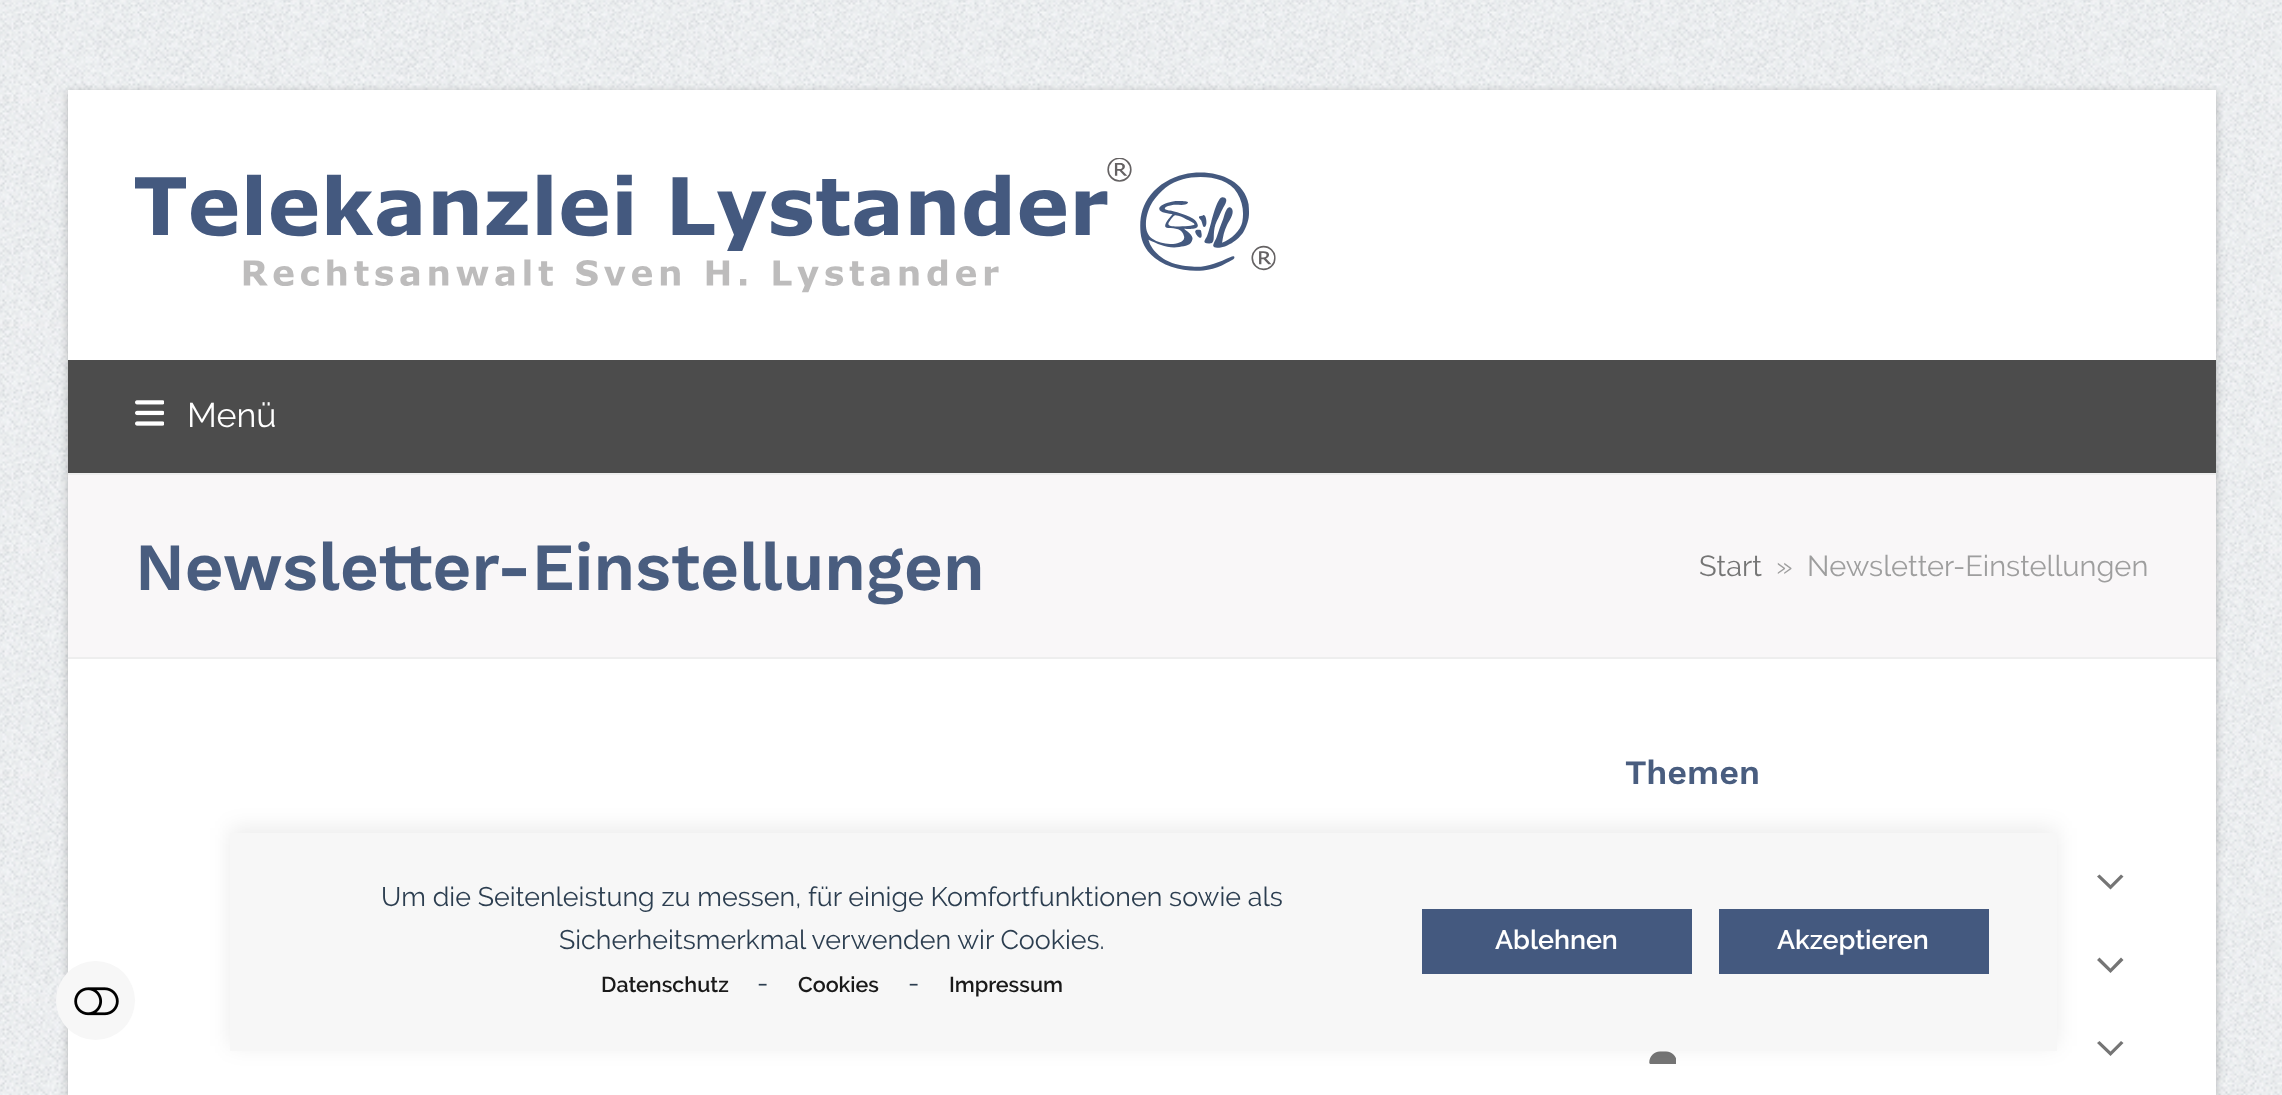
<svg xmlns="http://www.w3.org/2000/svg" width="2282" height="1095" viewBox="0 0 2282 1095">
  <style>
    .t1 { font: 34px Raleway; fill: #fff; }
    .t2 { font: 600 67.5px Work Sans; fill: #495d7f; }
    .t3 { font: 29px Raleway; fill: #757575; }
    .t4 { font: 29px Raleway; fill: #9e9e9e; }
    .t5 { font: 600 34px Work Sans; fill: #495d7f; }
    .t6 { font: 26.8px Raleway; fill: #2c3e50; }
    .t7 { font: 600 21.5px Raleway; fill: #1a1a1a; }
    .t8 { font: 600 26.8px Raleway; fill: #fff; }
  </style>
  <rect width="100%" height="100%" fill="#fff"/>
  <image x="0" y="0" width="2282" height="1095" href="images/1.png"/>
  <rect x="68" y="92" width="2148" height="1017" fill="#00000040" filter="blur(4.5px)"/>
  <rect x="68" y="90" width="2148" height="1005" fill="#fff"/>
  <image x="135" y="158" width="1141" height="135" href="images/2.png"/>
  <rect x="68" y="360" width="2148" height="113" fill="#4c4c4c"/>
  <image x="135" y="400" width="29" height="26" href="images/3.png"/>
  <text x="187" y="427" class="t1">Menü</text>
  <rect x="68" y="475" width="2148" height="182" fill="#f9f7f8"/>
  <rect x="68" y="473" width="2148" height="2" fill="#eee"/>
  <rect x="68" y="657" width="2148" height="2" fill="#eee"/>
  <text x="135" y="590" class="t2">Newsletter-Einstellungen</text>
  <text x="1699" y="576" class="t3">Start</text>
  <text x="1776" y="576" class="t4">»</text>
  <text x="1807" y="576" class="t4">Newsletter-Einstellungen</text>
  <text x="1625" y="784" class="t5">Themen</text>
  <path d="M2099.5 874.5L2097 876.5L2110.5 889.5L2123.5 876.5L2121 874.5L2110.5 885Z" fill="#757575"/>
  <path d="M2099.5 957.5L2097 960L2110.5 973L2123.5 960L2121 957.5L2110.5 968.5Z" fill="#757575"/>
  <path d="M2099.5 1041L2097 1043L2110.5 1056L2123.5 1043L2121 1041L2110.5 1051.5Z" fill="#757575"/>
  <image x="1649" y="1051" width="27" height="13" href="images/4.png"/>
  <circle cx="95.5" cy="1000.5" r="39.5" fill="#f7f7f7"/>
  <image x="74" y="987" width="45" height="29" href="images/5.png"/>
  <rect x="230" y="828" width="1827" height="218" fill="#00000014" filter="blur(11px)"/>
  <rect x="230" y="833" width="1827" height="218" fill="#f7f7f7"/>
  <text x="381" y="906" class="t6">Um die Seitenleistung zu messen, für einige Komfortfunktionen sowie als</text>
  <text x="559" y="949" class="t6">Sicherheitsmerkmal verwenden wir Cookies.</text>
  <text x="601" y="992" class="t7">Datenschutz</text>
  <text x="757" y="992" class="t6">-</text>
  <text x="798" y="992" class="t7">Cookies</text>
  <text x="908" y="992" class="t6">-</text>
  <text x="949" y="992" class="t7">Impressum</text>
  <rect x="1422" y="909" width="270" height="65" fill="#44597f"/>
  <text x="1495" y="949" class="t8">Ablehnen</text>
  <rect x="1719" y="909" width="270" height="65" fill="#44597f"/>
  <text x="1777" y="949" class="t8">Akzeptieren</text>
</svg>
